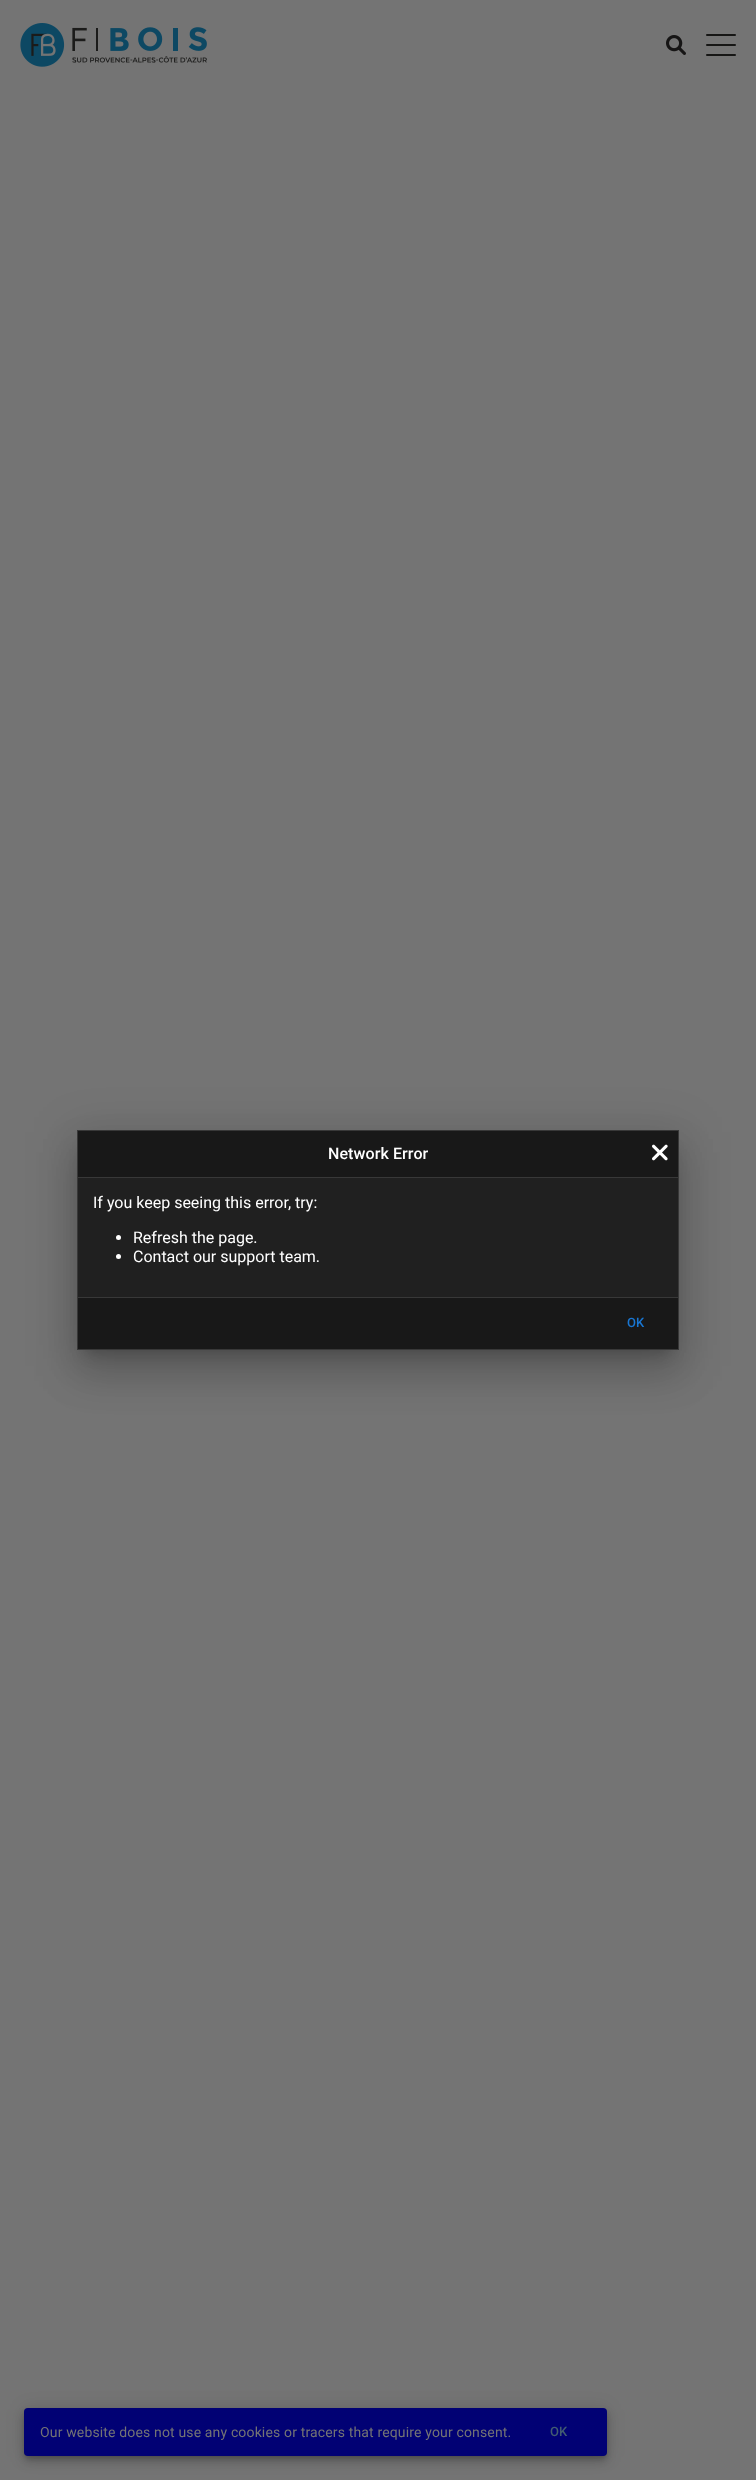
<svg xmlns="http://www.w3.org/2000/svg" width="756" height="2480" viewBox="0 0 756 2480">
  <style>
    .t1 { font: 500 16px Roboto; letter-spacing: 0.1px; fill: #fff; }
    .t2 { font: 16px Roboto; fill: #fff; }
    .t3 { font: 500 13px Roboto; fill: #1976d2; }
    .t4 { font: 14px Roboto; letter-spacing: 0.15px; fill: #747474; }
    .t5 { font: 500 13px Roboto; fill: #425c71; }
  </style>
  <rect width="100%" height="100%" fill="#747474"/>
  <rect x="70" y="1132" width="616" height="234" fill="#0000001f" filter="blur(23px)"/>
  <rect x="75" y="1152" width="606" height="224" fill="#00000024" filter="blur(19px)"/>
  <rect x="85" y="1149" width="586" height="204" fill="#00000033" filter="blur(7.5px)"/>
  <rect x="78" y="1178" width="600" height="119" fill="#202020"/>
  <rect x="78" y="1298" width="600" height="51" fill="#181818"/>
  <rect x="78" y="1297" width="600" height="1" fill="#383838"/>
  <rect x="77.5" y="1130.5" width="601" height="219" fill="none" stroke="#383838"/>
  <rect x="78" y="1131" width="600" height="46" fill="#181818"/>
  <rect x="78" y="1177" width="600" height="1" fill="#383838"/>
  <text x="328" y="1159" class="t1">Network Error</text>
  <image x="652" y="1144" width="16" height="17" href="images/1.png"/>
  <text x="93" y="1208" class="t2">If you keep seeing this error, try:</text>
  <circle cx="118.5" cy="1237.5" r="2.5" fill="#fff"/>
  <text x="133" y="1243" class="t2">Refresh the page.</text>
  <circle cx="118.5" cy="1256.5" r="2.5" fill="#fff"/>
  <text x="133" y="1262" class="t2">Contact our support team.</text>
  <text x="627" y="1327" class="t3">OK</text>
  <image x="20" y="23" width="187" height="44" href="images/2.png"/>
  <image x="666" y="35" width="20" height="20" href="images/3.png"/>
  <rect x="706" y="44" width="30" height="2" rx="1" fill="#161615"/>
  <rect x="706" y="34" width="30" height="2" rx="1" fill="#161615"/>
  <rect x="706" y="54" width="30" height="2" rx="1" fill="#161615"/>
  <rect x="24" y="2409" width="583" height="48" rx="4" fill="#0101011f" filter="blur(9px)"/>
  <rect x="24" y="2414" width="583" height="48" rx="4" fill="#01010124" filter="blur(5px)"/>
  <rect x="25" y="2412" width="581" height="46" rx="3" fill="#01010133" filter="blur(2.5px)"/>
  <rect x="24" y="2408" width="583" height="48" rx="4" fill="#010174"/>
  <text x="40" y="2437" class="t4">Our website does not use any cookies or tracers that require your consent.</text>
  <text x="550" y="2436" class="t5">OK</text>
</svg>
